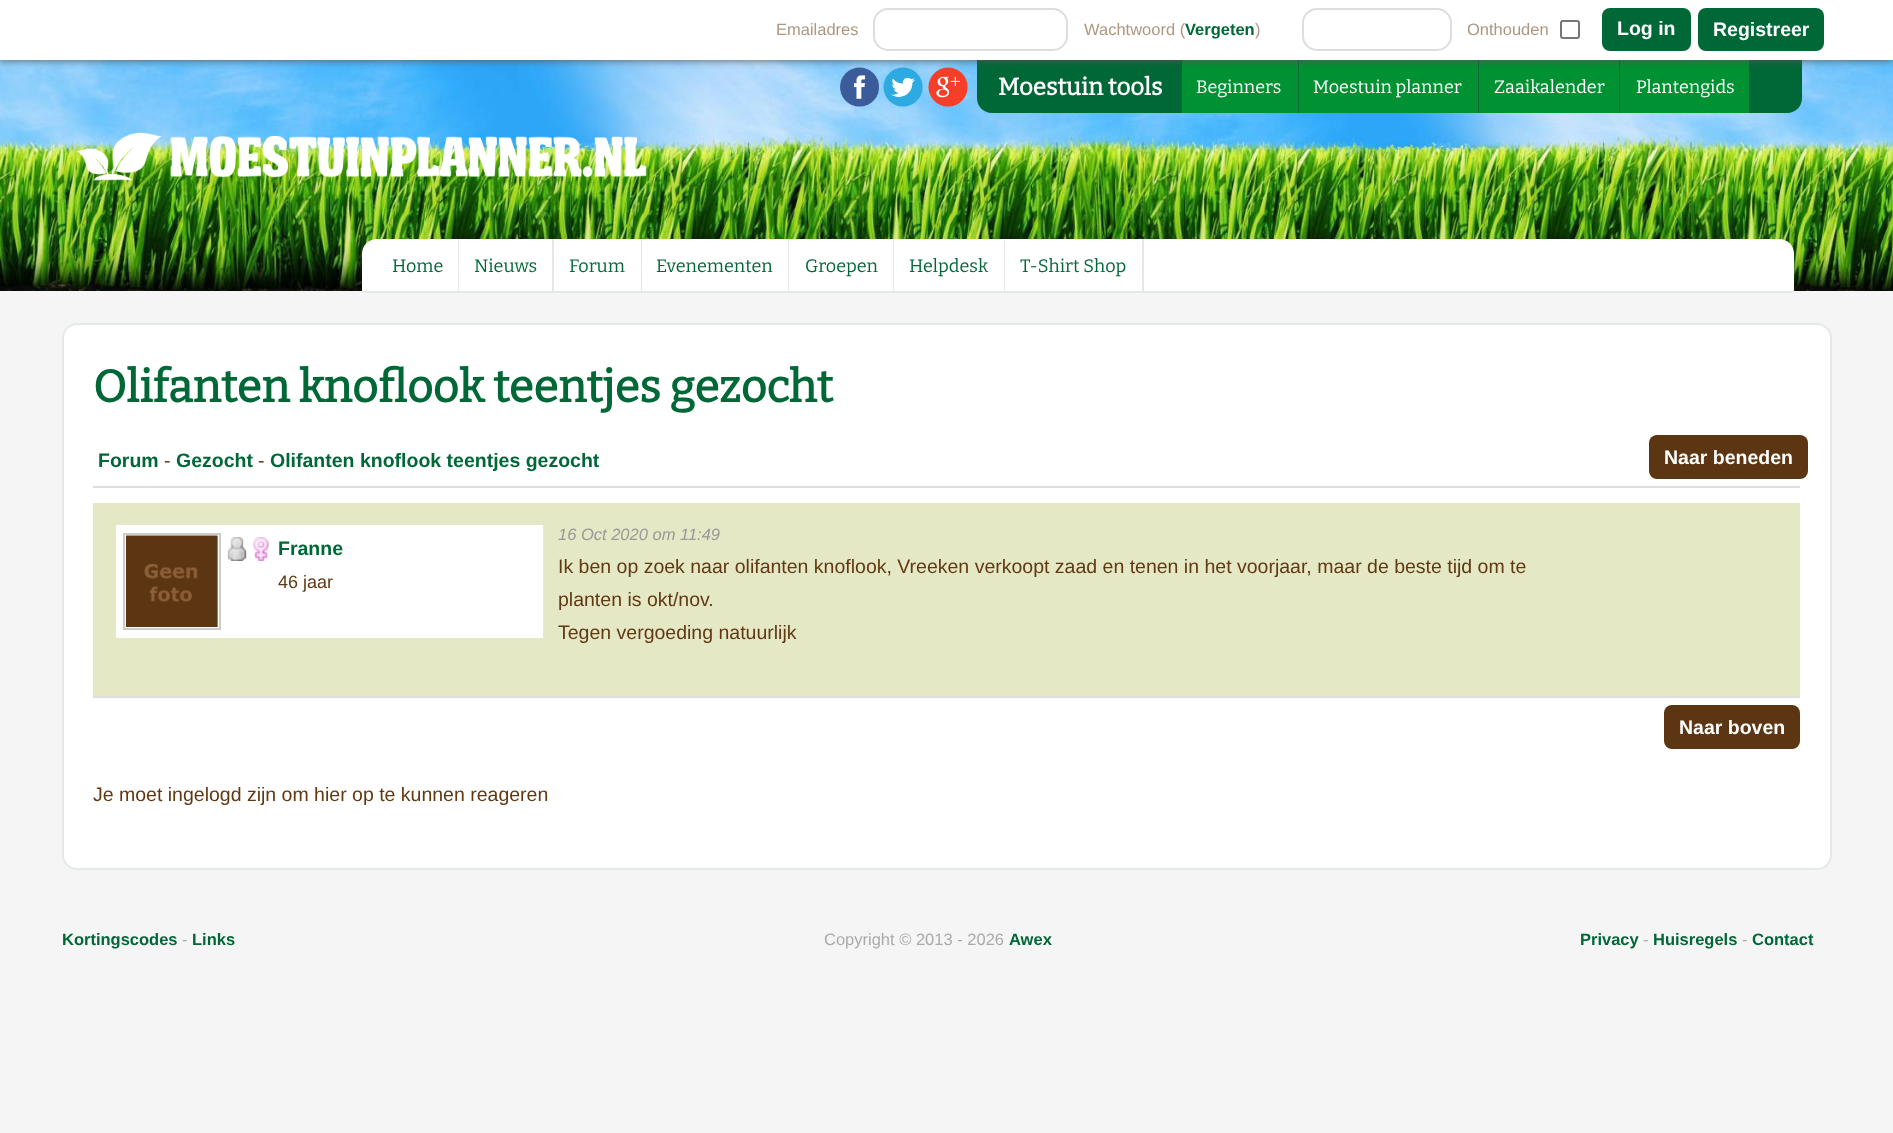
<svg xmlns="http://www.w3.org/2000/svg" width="1893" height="1133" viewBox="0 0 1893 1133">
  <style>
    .t1 { font: 16.5px Liberation Sans; fill: #ad9780; }
    .t2 { font: bold 16.5px Liberation Sans; fill: #006837; }
    .t3 { font: bold 19.5px Liberation Sans; fill: #fff; }
    .t4 { font: bold 24px Bitter; fill: #fff; }
    .t5 { font: 100 18px Bitter; fill: #fff; }
    .t6 { font: 100 18px Bitter; fill: #006837; }
    .t7 { font: bold 45px Bitter; fill: #006837; }
    .t8 { font: bold 19.5px Liberation Sans; fill: #006837; }
    .t9 { font: 19.5px Liberation Sans; fill: #603912; }
    .t10 { font: 18px Liberation Sans; fill: #603912; }
    .t11 { font: italic 16.5px Liberation Sans; fill: #999; }
    .t12 { font: 16.5px Liberation Sans; fill: #aaa; }
  </style>
  <rect width="100%" height="100%" fill="#f5f5f5"/>
  <image x="0" y="60" width="1893" height="231" href="images/1.png"/>
  <image x="840" y="67" width="39" height="40" href="images/3.png"/>
  <image x="883" y="67" width="40" height="40" href="images/4.png"/>
  <image x="928" y="67" width="40" height="40" href="images/5.png"/>
  <path d="M977 60H1802V98C1802 106.5 1795.5 113 1787 113H992C983.5 113 977 106.5 977 98Z" fill="#006837"/>
  <rect x="1182" y="60" width="116" height="53" fill="#009133"/>
  <rect x="1299" y="60" width="179" height="53" fill="#009133"/>
  <rect x="1479" y="60" width="140" height="53" fill="#009133"/>
  <rect x="1620" y="60" width="129" height="53" fill="#009133"/>
  <rect x="0" y="0" width="1893" height="60" fill="#555" filter="blur(4px)"/>
  <rect x="0" y="0" width="1893" height="60" fill="#fff"/>
  <text x="776" y="35" class="t1">Emailadres</text>
  <rect x="874" y="9" width="193" height="41" rx="14" fill="none" stroke="#ddd" stroke-width="2"/>
  <text x="1084" y="35" class="t1">Wachtwoord (</text>
  <text x="1185" y="35" class="t2">Vergeten</text>
  <text x="1255" y="35" class="t1">)</text>
  <rect x="1303" y="9" width="148" height="41" rx="14" fill="none" stroke="#ddd" stroke-width="2"/>
  <text x="1467" y="35" class="t1">Onthouden</text>
  <rect x="1561" y="21" width="18" height="17" rx="2" fill="none" stroke="#767676" stroke-width="2"/>
  <rect x="1602" y="8" width="89" height="43" rx="8" fill="#006837"/>
  <text x="1617" y="35" class="t3">Log in</text>
  <rect x="1698" y="8" width="126" height="43" rx="8" fill="#006837"/>
  <text x="1713" y="36" class="t3">Registreer</text>
  <image x="76" y="132" width="571" height="49" href="images/2.png"/>
  <text x="998" y="95" class="t4">Moestuin tools</text>
  <text x="1196" y="93" class="t5">Beginners</text>
  <text x="1313" y="93" class="t5">Moestuin planner</text>
  <text x="1494" y="93" class="t5">Zaaikalender</text>
  <text x="1636" y="93" class="t5">Plantengids</text>
  <path d="M377 239H1779C1787.5 239 1794 245.5 1794 254V293H362V254C362 245.5 368.5 239 377 239Z" fill="#fff"/>
  <rect x="362" y="291" width="1432" height="2" fill="#e2e9e6"/>
  <rect x="458" y="239" width="1" height="52" fill="#e2e9e6"/>
  <text x="392" y="272" class="t6">Home</text>
  <rect x="552" y="239" width="2" height="52" fill="#e2e9e6"/>
  <text x="474" y="272" class="t6">Nieuws</text>
  <rect x="641" y="239" width="1" height="52" fill="#e2e9e6"/>
  <text x="569" y="272" class="t6">Forum</text>
  <rect x="788" y="239" width="1" height="52" fill="#e2e9e6"/>
  <text x="656" y="272" class="t6">Evenementen</text>
  <rect x="893" y="239" width="1" height="52" fill="#e2e9e6"/>
  <text x="805" y="272" class="t6">Groepen</text>
  <rect x="1004" y="239" width="1" height="52" fill="#e2e9e6"/>
  <text x="909" y="272" class="t6">Helpdesk</text>
  <rect x="1142" y="239" width="2" height="52" fill="#e2e9e6"/>
  <text x="1020" y="272" class="t6">T-Shirt Shop</text>
  <rect x="63" y="324" width="1768" height="545" rx="14" fill="#fff" stroke="#e2e9e6" stroke-width="2"/>
  <text x="93" y="402" class="t7">Olifanten knoflook teentjes gezocht</text>
  <rect x="93" y="486" width="1707" height="2" fill="#ddd"/>
  <text x="98" y="467" class="t8">Forum</text>
  <text x="164" y="467" class="t9">-</text>
  <text x="176" y="467" class="t8">Gezocht</text>
  <text x="258" y="467" class="t9">-</text>
  <text x="270" y="467" class="t8">Olifanten knoflook teentjes gezocht</text>
  <rect x="1649" y="435" width="159" height="44" rx="8" fill="#5c3612"/>
  <text x="1664" y="464" class="t3">Naar beneden</text>
  <rect x="93" y="503" width="1707" height="193" fill="#e5e8c5"/>
  <rect x="93" y="696" width="1707" height="2" fill="#ddd"/>
  <rect x="116" y="525" width="427" height="113" fill="#fff"/>
  <rect x="124" y="534" width="96" height="95" fill="none" stroke="#ccc" stroke-width="2"/>
  <rect x="217" y="536" width="1" height="91" fill="#ccc"/>
  <image x="126" y="535" width="92" height="92" href="images/6.png"/>
  <image x="227" y="537" width="20" height="24" href="images/7.png"/>
  <image x="253" y="537" width="16" height="24" href="images/8.png"/>
  <text x="278" y="555" class="t8">Franne</text>
  <text x="278" y="588" class="t10">46 jaar</text>
  <text x="558" y="540" class="t11">16 Oct 2020 om 11:49</text>
  <text x="558" y="573" class="t9">Ik ben op zoek naar olifanten knoflook, Vreeken verkoopt zaad en tenen in het voorjaar, maar de beste tijd om te</text>
  <text x="558" y="606" class="t9">planten is okt/nov.</text>
  <text x="558" y="639" class="t9">Tegen vergoeding natuurlijk</text>
  <rect x="1664" y="705" width="136" height="44" rx="8" fill="#5c3612"/>
  <text x="1679" y="734" class="t3">Naar boven</text>
  <text x="93" y="801" class="t9">Je moet ingelogd zijn om hier op te kunnen reageren</text>
  <text x="62" y="945" class="t2">Kortingscodes</text>
  <text x="182" y="945" class="t12">-</text>
  <text x="192" y="945" class="t2">Links</text>
  <text x="824" y="945" class="t12">Copyright © 2013 - 2026</text>
  <text x="1009" y="945" class="t2">Awex</text>
  <text x="1580" y="945" class="t2">Privacy</text>
  <text x="1643" y="945" class="t12">-</text>
  <text x="1653" y="945" class="t2">Huisregels</text>
  <text x="1742" y="945" class="t12">-</text>
  <text x="1752" y="945" class="t2">Contact</text>
</svg>
